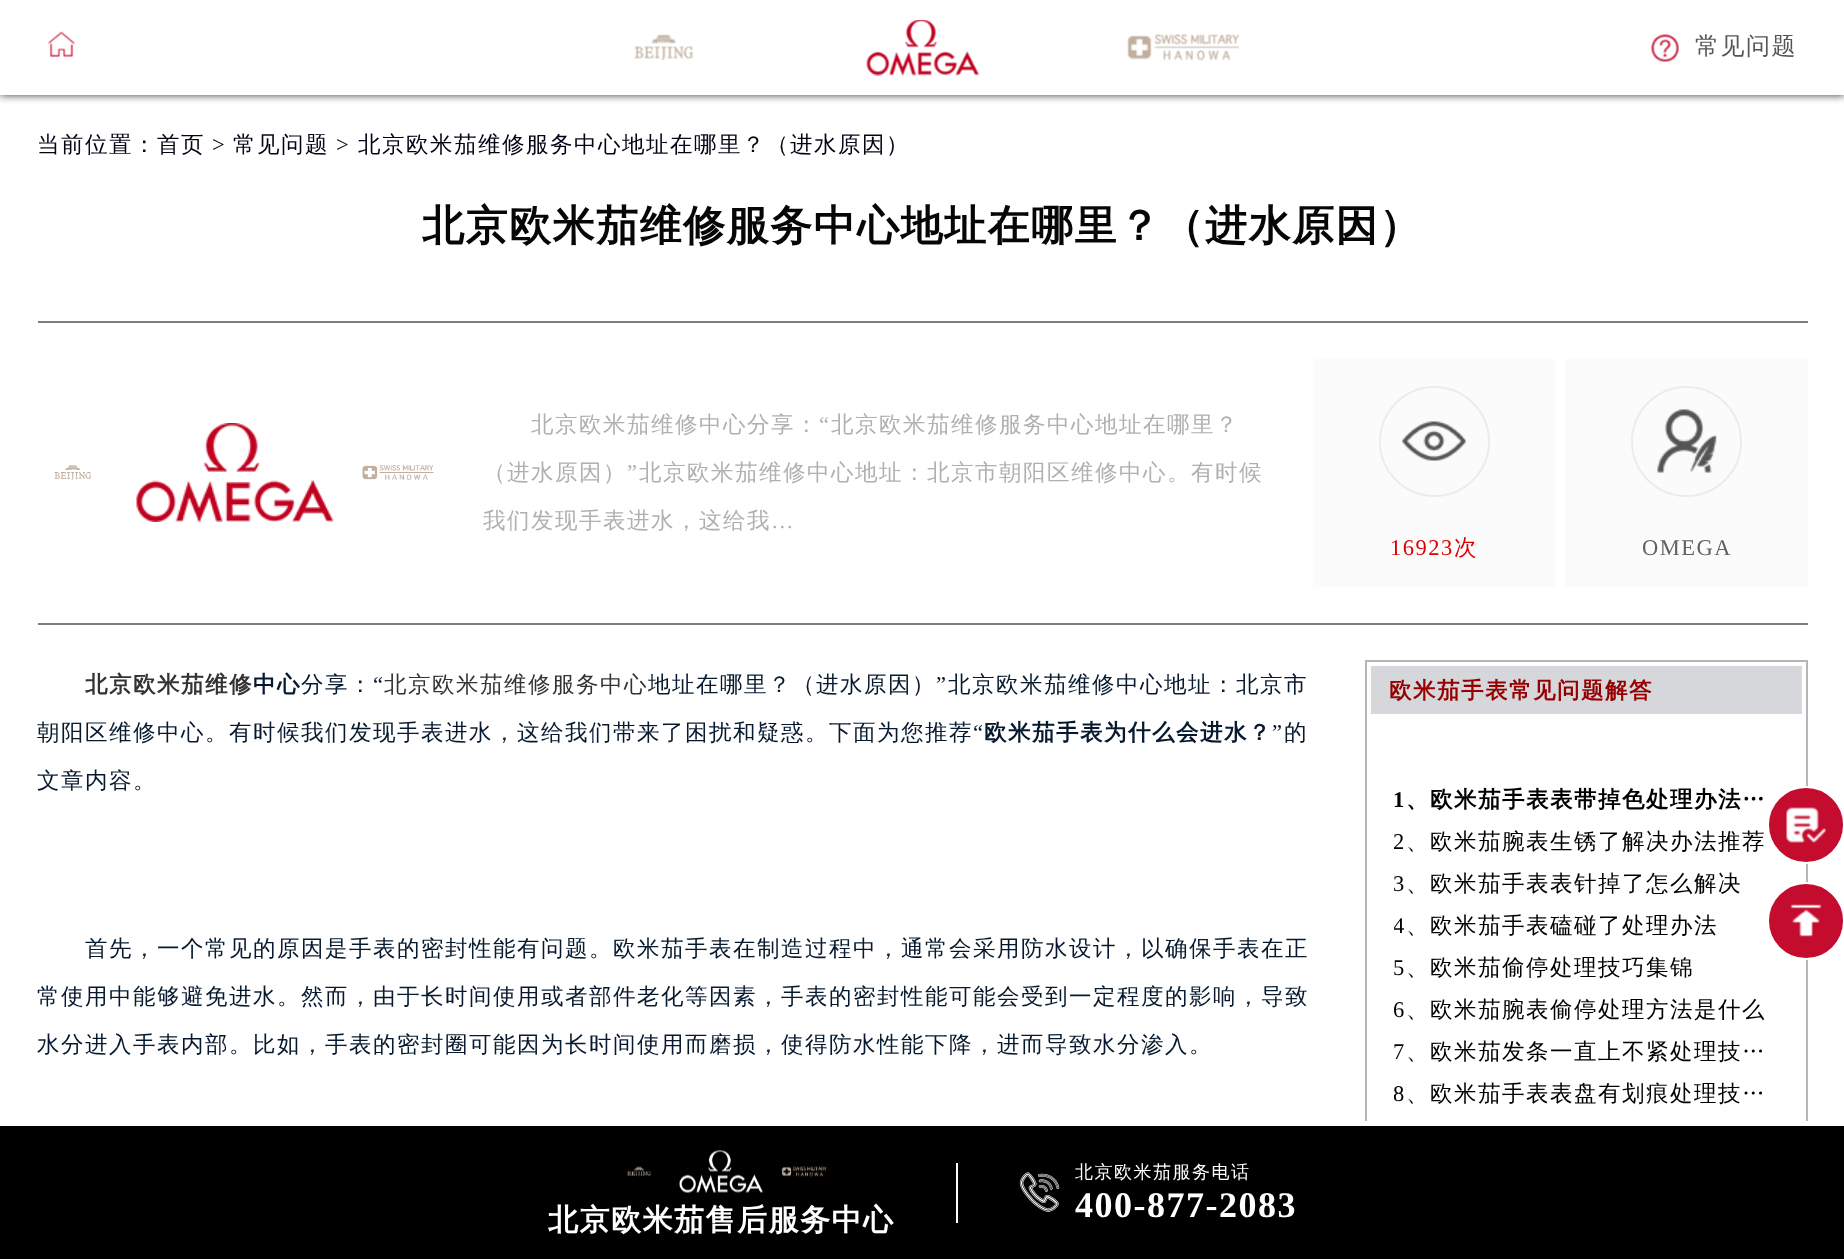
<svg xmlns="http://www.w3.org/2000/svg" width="1844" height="1259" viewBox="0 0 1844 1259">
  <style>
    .t1 { font: 500 24px WenQuanYi Zen Hei; letter-spacing: 1.5px; fill: #555; }
    .t2 { font: 500 22.5px WenQuanYi Zen Hei; letter-spacing: 1.5px; fill: #020414; }
    .t3 { font: 22.5px Liberation Serif; letter-spacing: 1.5px; fill: #020414; }
    .t4 { font: bold 42px WenQuanYi Zen Hei; letter-spacing: 1.5px; fill: #060606; }
    .t5 { font: 500 22.5px WenQuanYi Zen Hei; letter-spacing: 1.5px; fill: #afb0b1; }
    .t6 { font: 22.5px Liberation Serif; letter-spacing: 1.5px; fill: #afb0b1; }
    .t7 { font: 22.5px Liberation Serif; letter-spacing: 1.5px; fill: #de0000; }
    .t8 { font: 500 22.5px WenQuanYi Zen Hei; letter-spacing: 1.5px; fill: #de0000; }
    .t9 { font: 22.5px Liberation Serif; letter-spacing: 1.5px; fill: #616161; }
    .t10 { font: bold 22.5px WenQuanYi Zen Hei; letter-spacing: 1.5px; fill: #333; }
    .t11 { font: bold 22.5px WenQuanYi Zen Hei; letter-spacing: 1.5px; fill: #07192f; }
    .t12 { font: 500 22.5px WenQuanYi Zen Hei; letter-spacing: 1.5px; fill: #07192f; }
    .t13 { font: 22.5px Liberation Serif; letter-spacing: 1.5px; fill: #07192f; }
    .t14 { font: 500 22.5px WenQuanYi Zen Hei; letter-spacing: 1.5px; fill: #333; }
    .t15 { font: bold 22.5px WenQuanYi Zen Hei; letter-spacing: 1.5px; fill: #960000; }
    .t16 { font: bold 22.5px Liberation Serif; letter-spacing: 1.5px; fill: #000; }
    .t17 { font: bold 22.5px WenQuanYi Zen Hei; letter-spacing: 1.5px; fill: #000; }
    .t18 { font: 22.5px Liberation Serif; letter-spacing: 1.5px; fill: #000; }
    .t19 { font: 500 22.5px WenQuanYi Zen Hei; letter-spacing: 1.5px; fill: #000; }
    .t20 { font: bold 30px WenQuanYi Zen Hei; letter-spacing: 1.5px; fill: #fff; }
    .t21 { font: 500 18px WenQuanYi Zen Hei; letter-spacing: 1.5px; fill: #fff; }
    .t22 { font: bold 36px Liberation Serif; letter-spacing: 1.5px; fill: #fff; }
  </style>
  <defs>
    <clipPath id="clip1"><rect x="1394" y="905" width="387" height="42"/></clipPath>
    <clipPath id="clip2"><rect x="1394" y="989" width="387" height="42"/></clipPath>
    <clipPath id="clip3"><rect x="1394" y="1073" width="387" height="42"/></clipPath>
  </defs>
  <rect width="100%" height="100%" fill="#fff"/>
  <rect x="0" y="0" width="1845" height="95" fill="#333" filter="blur(4px)"/>
  <rect x="0" y="0" width="1844" height="95" fill="#fff"/>
  <image x="48" y="31" width="27" height="27" href="images/1.png"/>
  <image x="634" y="34" width="60" height="27" href="images/2.png"/>
  <image x="866" y="20" width="113" height="56" href="images/3.png"/>
  <image x="1127" y="34" width="113" height="27" href="images/4.png"/>
  <image x="1651" y="34" width="28" height="28" href="images/5.png"/>
  <text x="1695" y="54" class="t1">常见问题</text>
  <text x="37" y="152" class="t2">当前位置：首页</text>
  <text x="212" y="152" class="t3">&gt;</text>
  <text x="233" y="152" class="t2">常见问题</text>
  <text x="336" y="152" class="t3">&gt;</text>
  <text x="358" y="152" class="t2">北京欧米茄维修服务中心地址在哪里？（进水原因）</text>
  <text x="422" y="240" class="t4">北京欧米茄维修服务中心地址在哪里？（进水原因）</text>
  <rect x="38" y="321" width="1770" height="2" fill="#7d7d7d"/>
  <rect x="38" y="623" width="1770" height="2" fill="#7d7d7d"/>
  <image x="54" y="465" width="37" height="15" href="images/6.png"/>
  <image x="136" y="423" width="198" height="99" href="images/7.png"/>
  <image x="362" y="465" width="72" height="15" href="images/8.png"/>
  <text x="531" y="432" class="t5">北京欧米茄维修中心分享：</text>
  <text x="819" y="432" class="t6">“</text>
  <text x="831" y="432" class="t5">北京欧米茄维修服务中心地址在哪里？</text>
  <text x="483" y="480" class="t5">（进水原因）</text>
  <text x="627" y="480" class="t6">”</text>
  <text x="639" y="480" class="t5">北京欧米茄维修中心地址：北京市朝阳区维修中心。有时候</text>
  <text x="483" y="528" class="t5">我们发现手表进水，这给我</text>
  <text x="771" y="528" class="t6">…</text>
  <rect x="1313" y="359" width="243" height="228" fill="#fbfbfb"/>
  <circle cx="1434.5" cy="441.5" r="54.5" fill="none" stroke="#ececec" stroke-width="2"/>
  <image x="1402" y="421" width="64" height="40" href="images/9.png"/>
  <text x="1390" y="555" class="t7">16923</text>
  <text x="1454" y="555" class="t8">次</text>
  <rect x="1565" y="359" width="243" height="228" fill="#fbfbfb"/>
  <circle cx="1686.5" cy="441.5" r="54.5" fill="none" stroke="#ececec" stroke-width="2"/>
  <image x="1657" y="409" width="60" height="64" href="images/10.png"/>
  <text x="1642" y="555" class="t9">OMEGA</text>
  <text x="85" y="692" class="t10">北京欧米茄维修</text>
  <text x="253" y="692" class="t11">中心</text>
  <text x="301" y="692" class="t12">分享：</text>
  <text x="373" y="692" class="t13">“</text>
  <text x="384" y="692" class="t14">北京欧米茄维修服务中心</text>
  <text x="648" y="692" class="t12">地址在哪里？（进水原因）</text>
  <text x="936" y="692" class="t13">”</text>
  <text x="948" y="692" class="t12">北京欧米茄维修中心地址：北京市</text>
  <text x="37" y="740" class="t12">朝阳区维修中心。有时候我们发现手表进水，这给我们带来了困扰和疑惑。下面为您推荐</text>
  <text x="973" y="740" class="t13">“</text>
  <text x="984" y="740" class="t11">欧米茄手表为什么会进水？</text>
  <text x="1272" y="740" class="t13">”</text>
  <text x="1284" y="740" class="t12">的</text>
  <text x="37" y="788" class="t12">文章内容。</text>
  <text x="85" y="956" class="t12">首先，一个常见的原因是手表的密封性能有问题。欧米茄手表在制造过程中，通常会采用防水设计，以确保手表在正</text>
  <text x="37" y="1004" class="t12">常使用中能够避免进水。然而，由于长时间使用或者部件老化等因素，手表的密封性能可能会受到一定程度的影响，导致</text>
  <text x="37" y="1052" class="t12">水分进入手表内部。比如，手表的密封圈可能因为长时间使用而磨损，使得防水性能下降，进而导致水分渗入。</text>
  <rect x="1366" y="661" width="441" height="561" fill="none" stroke="#b6b6b6" stroke-width="2"/>
  <rect x="1371" y="666" width="431" height="48" fill="#d6d7db"/>
  <text x="1389" y="698" class="t15">欧米茄手表常见问题解答</text>
  <text x="1393" y="807" class="t16">1</text>
  <text x="1406" y="807" class="t17">、欧米茄手表表带掉色处理办法…</text>
  <text x="1393" y="849" class="t18">2</text>
  <text x="1406" y="849" class="t19">、欧米茄腕表生锈了解决办法推荐</text>
  <text x="1393" y="891" class="t18">3</text>
  <text x="1406" y="891" class="t19">、欧米茄手表表针掉了怎么解决</text>
  <g clip-path="url(#clip1)">
    <text x="1393" y="933" class="t18">4</text>
  </g>
  <text x="1406" y="933" class="t19">、欧米茄手表磕碰了处理办法</text>
  <text x="1393" y="975" class="t18">5</text>
  <text x="1406" y="975" class="t19">、欧米茄偷停处理技巧集锦</text>
  <g clip-path="url(#clip2)">
    <text x="1393" y="1017" class="t18">6</text>
  </g>
  <text x="1406" y="1017" class="t19">、欧米茄腕表偷停处理方法是什么</text>
  <text x="1393" y="1059" class="t18">7</text>
  <text x="1406" y="1059" class="t19">、欧米茄发条一直上不紧处理技…</text>
  <g clip-path="url(#clip3)">
    <text x="1393" y="1101" class="t18">8</text>
  </g>
  <text x="1406" y="1101" class="t19">、欧米茄手表表盘有划痕处理技…</text>
  <circle cx="1806" cy="825" r="38" fill="#c40d2e" stroke="#fff" stroke-width="2"/>
  <image x="1786" y="807" width="40" height="36" href="images/11.png"/>
  <circle cx="1806" cy="921" r="38" fill="#c40d2e" stroke="#fff" stroke-width="2"/>
  <image x="1790" y="904" width="32" height="33" href="images/12.png"/>
  <rect x="0" y="1126" width="1844" height="133" fill="#000"/>
  <rect x="1365" y="1121" width="443" height="5" fill="#fff"/>
  <image x="627" y="1166" width="24" height="11" href="images/13.png"/>
  <image x="679" y="1150" width="84" height="43" href="images/14.png"/>
  <image x="781" y="1166" width="46" height="11" href="images/15.png"/>
  <text x="548" y="1230" class="t20">北京欧米茄售后服务中心</text>
  <rect x="956" y="1163" width="2" height="60" fill="#fff"/>
  <image x="1019" y="1172" width="41" height="40" href="images/16.png"/>
  <text x="1075" y="1178" class="t21">北京欧米茄服务电话</text>
  <text x="1075" y="1217" class="t22">400-877-2083</text>
</svg>
